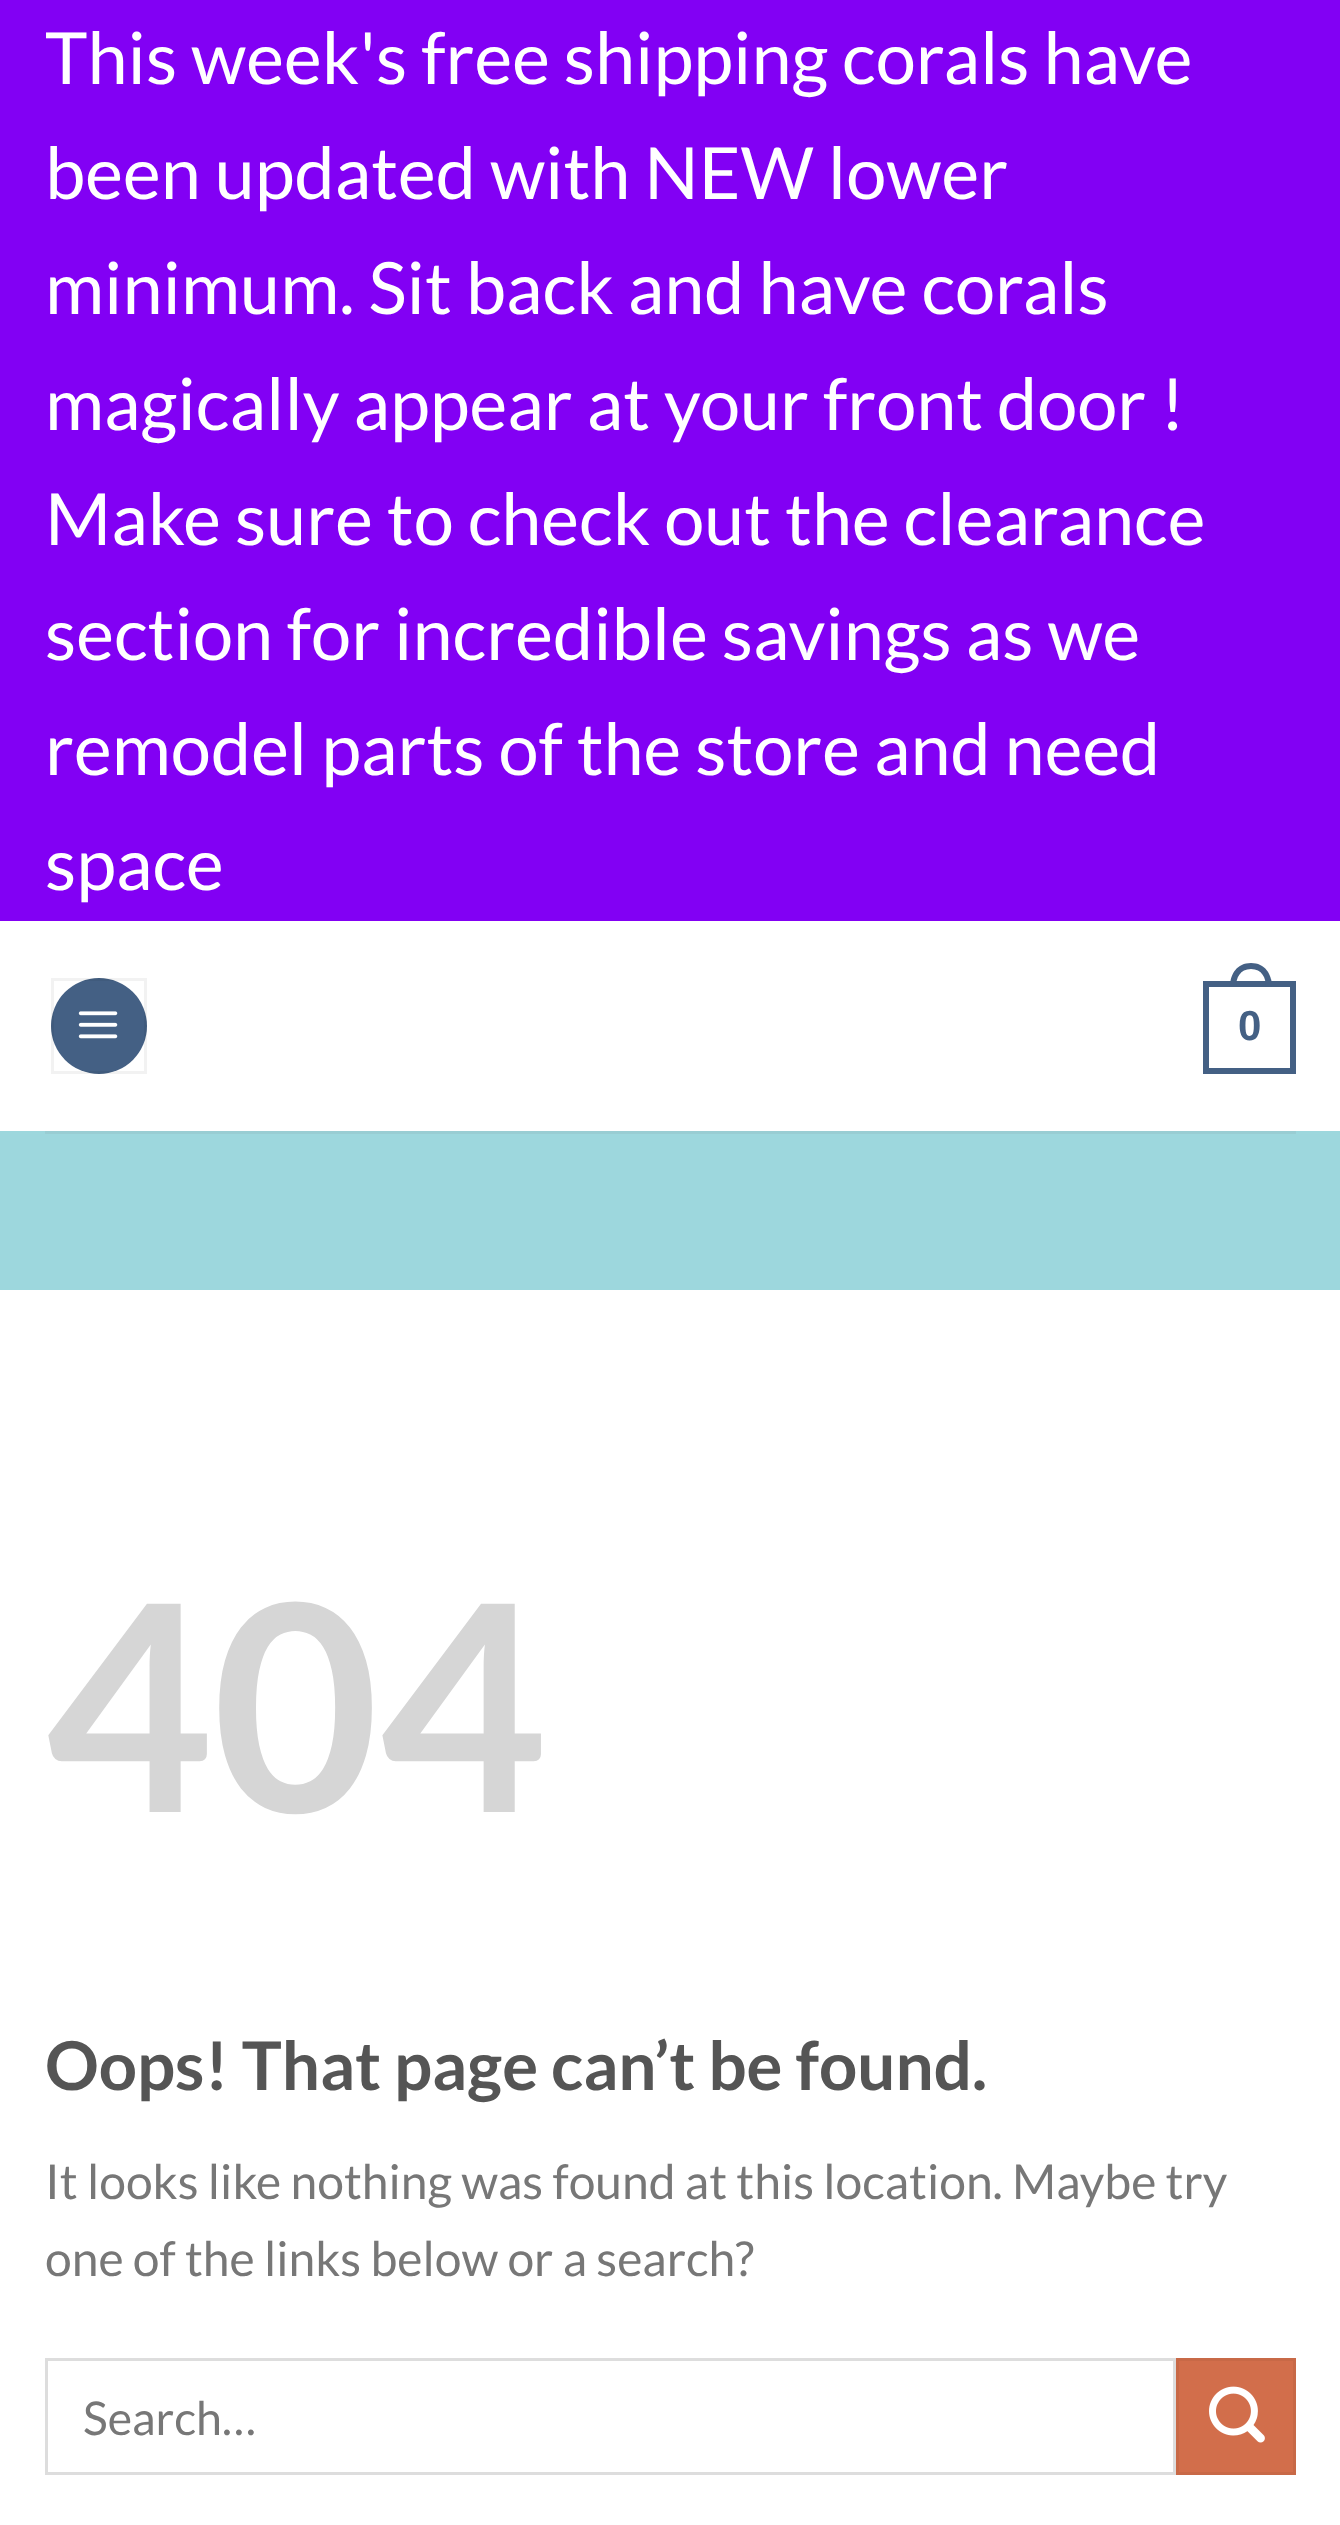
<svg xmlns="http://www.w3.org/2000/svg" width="1340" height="2525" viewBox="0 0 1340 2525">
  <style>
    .t1 { font: 72px Lato; fill: #fff; }
    .t2 { font: bold 42px Liberation Sans; fill: #446084; }
    .t3 { font: bold 288px Lato; fill: #d6d6d6; }
    .t4 { font: bold 67.25px Lato; fill: #555; }
    .t5 { font: 48px Lato; fill: #777; }
    .t6 { font: 46.5px Lato; fill: #777; }
  </style>
  <rect width="100%" height="100%" fill="#fff"/>
  <rect x="0" y="0" width="1340" height="921" fill="#8200f4"/>
  <text x="45" y="84" class="t1">This week's free shipping corals have</text>
  <text x="45" y="199" class="t1">been updated with NEW lower</text>
  <text x="45" y="314" class="t1">minimum. Sit back and have corals</text>
  <text x="45" y="430" class="t1">magically appear at your front door !</text>
  <text x="45" y="545" class="t1">Make sure to check out the clearance</text>
  <text x="45" y="660" class="t1">section for incredible savings as we</text>
  <text x="45" y="775" class="t1">remodel parts of the store and need</text>
  <text x="45" y="890" class="t1">space</text>
  <circle cx="99" cy="1026" r="48" fill="#446084"/>
  <rect x="52.5" y="979.5" width="93" height="93" fill="none" stroke="#0000000d" stroke-width="3"/>
  <image x="78" y="1011" width="40" height="28" href="images/1.png"/>
  <rect x="1206" y="984" width="87" height="87" fill="none" stroke="#446084" stroke-width="6"/>
  <path d="M1251 963C1265 963 1272 974 1272 987H1230C1230 974 1237 963 1251 963ZM1251 969C1262 969 1266 978 1266 987H1236C1236 978 1240 969 1251 969Z" fill="#446084" fill-rule="evenodd"/>
  <text x="1238" y="1040" class="t2">0</text>
  <rect x="0" y="1131" width="1340" height="159" fill="#9dd7dd"/>
  <rect x="45" y="1131" width="1251" height="3" fill="#99cdd3"/>
  <text x="45" y="1812" class="t3">404</text>
  <text x="45" y="2090" class="t4">Oops! That page can’t be found.</text>
  <text x="45" y="2199" class="t5">It looks like nothing was found at this location. Maybe try</text>
  <text x="45" y="2276" class="t5">one of the links below or a search?</text>
  <rect x="46.5" y="2359.5" width="1128" height="114" fill="none" stroke="#ddd" stroke-width="3"/>
  <text x="83" y="2435" class="t6">Search…</text>
  <rect x="1177.5" y="2359.5" width="117" height="114" fill="#d26e4b" stroke="#c86947" stroke-width="3"/>
  <image x="1209" y="2386" width="56" height="57" href="images/2.png"/>
</svg>
